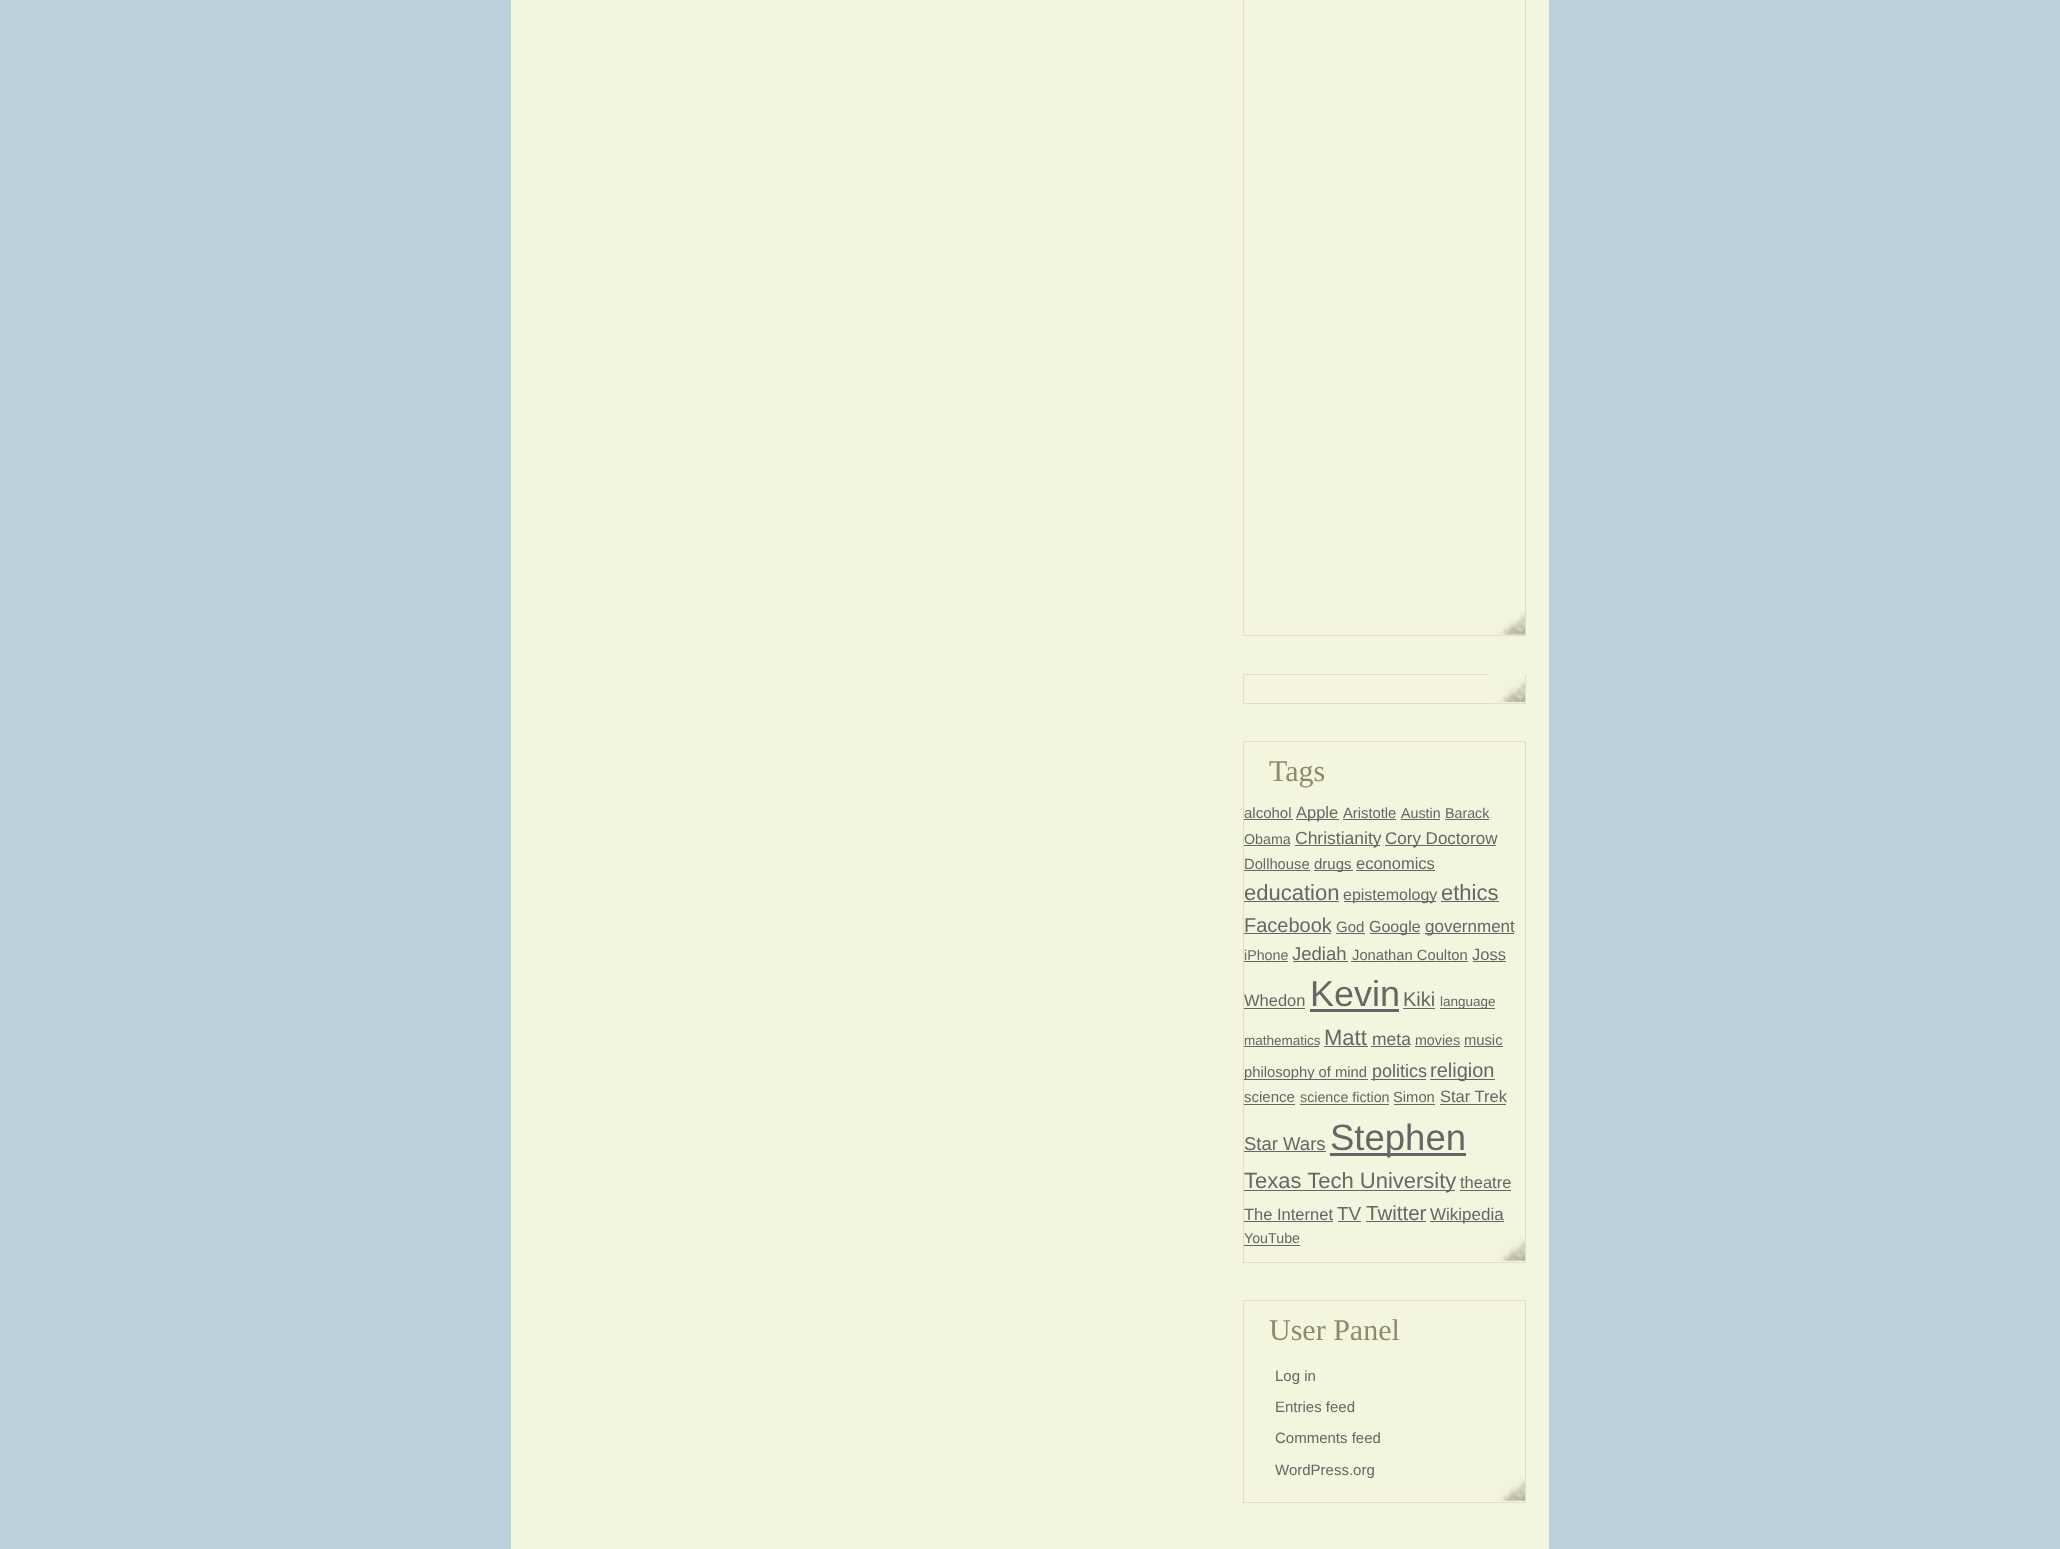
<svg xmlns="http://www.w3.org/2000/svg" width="2060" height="1549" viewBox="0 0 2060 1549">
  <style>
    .t1 { font: 30px Liberation Serif; fill: #8a8c6b; }
    .t2 { font: 15px Liberation Sans; fill: #666; }
    .t3 { font: 16.5px Liberation Sans; fill: #666; }
    .t4 { font: 14.75px Liberation Sans; fill: #666; }
    .t5 { font: 14.25px Liberation Sans; fill: #666; }
    .t6 { font: 17.5px Liberation Sans; fill: #666; }
    .t7 { font: 17px Liberation Sans; fill: #666; }
    .t8 { font: 22px Liberation Sans; fill: #666; }
    .t9 { font: 16px Liberation Sans; fill: #666; }
    .t10 { font: 20px Liberation Sans; fill: #666; }
    .t11 { font: 18.5px Liberation Sans; fill: #666; }
    .t12 { font: 36px Liberation Sans; fill: #666; }
    .t13 { font: 13.5px Liberation Sans; fill: #666; }
    .t14 { font: 18px Liberation Sans; fill: #666; }
    .t15 { font: 36.5px Liberation Sans; fill: #666; }
    .t16 { font: 19px Liberation Sans; fill: #666; }
    .t17 { font: 20.5px Liberation Sans; fill: #666; }
  </style>
  <rect width="100%" height="100%" fill="#bcd1dc"/>
  <rect x="511" y="0" width="1038" height="1549" fill="#f4f5de"/>
  <rect x="1243.5" y="-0.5" width="282" height="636" fill="none" stroke="#dfe0c3"/>
  <image x="1497" y="611" width="28" height="24" href="images/1.png"/>
  <rect x="1243.5" y="674.5" width="282" height="29" fill="none" stroke="#dfe0c3"/>
  <image x="1488" y="674" width="37" height="28" href="images/2.png"/>
  <rect x="1243.5" y="741.5" width="282" height="521" fill="none" stroke="#dfe0c3"/>
  <text x="1269" y="781" class="t1">Tags</text>
  <text x="1244" y="818" class="t2">alcohol</text>
  <rect x="1244" y="819" width="49" height="1" fill="#666"/>
  <rect x="1296" y="819" width="43" height="1" fill="#666"/>
  <text x="1296" y="818" class="t3">Apple</text>
  <text x="1343" y="818" class="t4">Aristotle</text>
  <rect x="1343" y="819" width="53" height="1" fill="#666"/>
  <text x="1401" y="818" class="t5">Austin</text>
  <rect x="1401" y="819" width="39" height="1" fill="#666"/>
  <text x="1445" y="818" class="t5">Barack</text>
  <rect x="1445" y="819" width="44" height="1" fill="#666"/>
  <text x="1244" y="844" class="t5">Obama</text>
  <rect x="1244" y="845" width="46" height="1" fill="#666"/>
  <rect x="1295" y="845" width="85" height="1" fill="#666"/>
  <text x="1295" y="844" class="t6">Christianity</text>
  <rect x="1385" y="845" width="111" height="1" fill="#666"/>
  <text x="1385" y="844" class="t7">Cory Doctorow</text>
  <text x="1244" y="869" class="t4">Dollhouse</text>
  <rect x="1244" y="870" width="66" height="1" fill="#666"/>
  <rect x="1314" y="870" width="39" height="1" fill="#666"/>
  <text x="1314" y="869" class="t2">drugs</text>
  <text x="1356" y="869" class="t3">economics</text>
  <rect x="1356" y="870" width="79" height="1" fill="#666"/>
  <text x="1244" y="900" class="t8">education</text>
  <rect x="1244" y="901" width="95" height="1" fill="#666"/>
  <rect x="1344" y="901" width="92" height="1" fill="#666"/>
  <text x="1343" y="900" class="t9">epistemology</text>
  <text x="1441" y="900" class="t8">ethics</text>
  <rect x="1441" y="901" width="58" height="1" fill="#666"/>
  <text x="1244" y="932" class="t10">Facebook</text>
  <rect x="1244" y="933" width="87" height="1" fill="#666"/>
  <text x="1336" y="932" class="t2">God</text>
  <rect x="1336" y="933" width="29" height="1" fill="#666"/>
  <rect x="1370" y="933" width="50" height="1" fill="#666"/>
  <text x="1369" y="932" class="t9">Google</text>
  <rect x="1425" y="933" width="89" height="1" fill="#666"/>
  <text x="1425" y="932" class="t7">government</text>
  <text x="1244" y="960" class="t5">iPhone</text>
  <rect x="1244" y="961" width="44" height="1" fill="#666"/>
  <text x="1292" y="960" class="t11">Jediah</text>
  <rect x="1293" y="961" width="55" height="1" fill="#666"/>
  <text x="1352" y="960" class="t4">Jonathan Coulton</text>
  <rect x="1351" y="961" width="117" height="1" fill="#666"/>
  <text x="1472" y="960" class="t3">Joss</text>
  <rect x="1473" y="961" width="33" height="1" fill="#666"/>
  <text x="1244" y="1006" class="t3">Whedon</text>
  <rect x="1244" y="1008" width="61" height="1" fill="#666"/>
  <text x="1310" y="1006" class="t12">Kevin</text>
  <rect x="1310" y="1009" width="89" height="3" fill="#666"/>
  <text x="1403" y="1006" class="t10">Kiki</text>
  <rect x="1403" y="1008" width="32" height="1" fill="#666"/>
  <rect x="1440" y="1008" width="55" height="1" fill="#666"/>
  <text x="1440" y="1006" class="t13">language</text>
  <text x="1244" y="1045" class="t13">mathematics</text>
  <rect x="1244" y="1046" width="75" height="1" fill="#666"/>
  <text x="1324" y="1045" class="t8">Matt</text>
  <rect x="1324" y="1046" width="44" height="1" fill="#666"/>
  <text x="1372" y="1045" class="t6">meta</text>
  <rect x="1371" y="1046" width="39" height="1" fill="#666"/>
  <text x="1415" y="1045" class="t5">movies</text>
  <rect x="1415" y="1046" width="45" height="1" fill="#666"/>
  <text x="1464" y="1045" class="t4">music</text>
  <rect x="1464" y="1046" width="39" height="1" fill="#666"/>
  <rect x="1244" y="1079" width="124" height="1" fill="#666"/>
  <text x="1244" y="1077" class="t4">philosophy of mind</text>
  <rect x="1371" y="1079" width="55" height="1" fill="#666"/>
  <text x="1372" y="1077" class="t14">politics</text>
  <rect x="1430" y="1079" width="65" height="1" fill="#666"/>
  <text x="1430" y="1077" class="t10">religion</text>
  <text x="1244" y="1102" class="t2">science</text>
  <rect x="1244" y="1104" width="51" height="1" fill="#666"/>
  <text x="1300" y="1102" class="t5">science fiction</text>
  <rect x="1300" y="1104" width="89" height="1" fill="#666"/>
  <text x="1393" y="1102" class="t4">Simon</text>
  <rect x="1394" y="1104" width="41" height="1" fill="#666"/>
  <text x="1440" y="1102" class="t3">Star Trek</text>
  <rect x="1440" y="1104" width="66" height="1" fill="#666"/>
  <text x="1244" y="1150" class="t11">Star Wars</text>
  <rect x="1244" y="1151" width="82" height="1" fill="#666"/>
  <rect x="1330" y="1153" width="136" height="3" fill="#666"/>
  <text x="1330" y="1150" class="t15">Stephen</text>
  <rect x="1244" y="1190" width="211" height="1" fill="#666"/>
  <text x="1244" y="1188" class="t8">Texas Tech University</text>
  <text x="1460" y="1188" class="t3">theatre</text>
  <rect x="1460" y="1190" width="51" height="1" fill="#666"/>
  <text x="1244" y="1220" class="t3">The Internet</text>
  <rect x="1244" y="1221" width="89" height="1" fill="#666"/>
  <text x="1337" y="1220" class="t16">TV</text>
  <rect x="1338" y="1221" width="23" height="1" fill="#666"/>
  <text x="1366" y="1220" class="t17">Twitter</text>
  <rect x="1366" y="1221" width="60" height="1" fill="#666"/>
  <rect x="1430" y="1221" width="74" height="1" fill="#666"/>
  <text x="1430" y="1220" class="t7">Wikipedia</text>
  <text x="1244" y="1243" class="t5">YouTube</text>
  <rect x="1244" y="1245" width="56" height="1" fill="#666"/>
  <image x="1497" y="1238" width="28" height="23" href="images/3.png"/>
  <rect x="1243.5" y="1300.5" width="282" height="202" fill="none" stroke="#dfe0c3"/>
  <text x="1269" y="1340" class="t1">User Panel</text>
  <text x="1275" y="1381" class="t2">Log in</text>
  <text x="1275" y="1412" class="t2">Entries feed</text>
  <text x="1275" y="1443" class="t2">Comments feed</text>
  <text x="1275" y="1475" class="t2">WordPress.org</text>
  <image x="1497" y="1478" width="28" height="23" href="images/3.png"/>
</svg>
